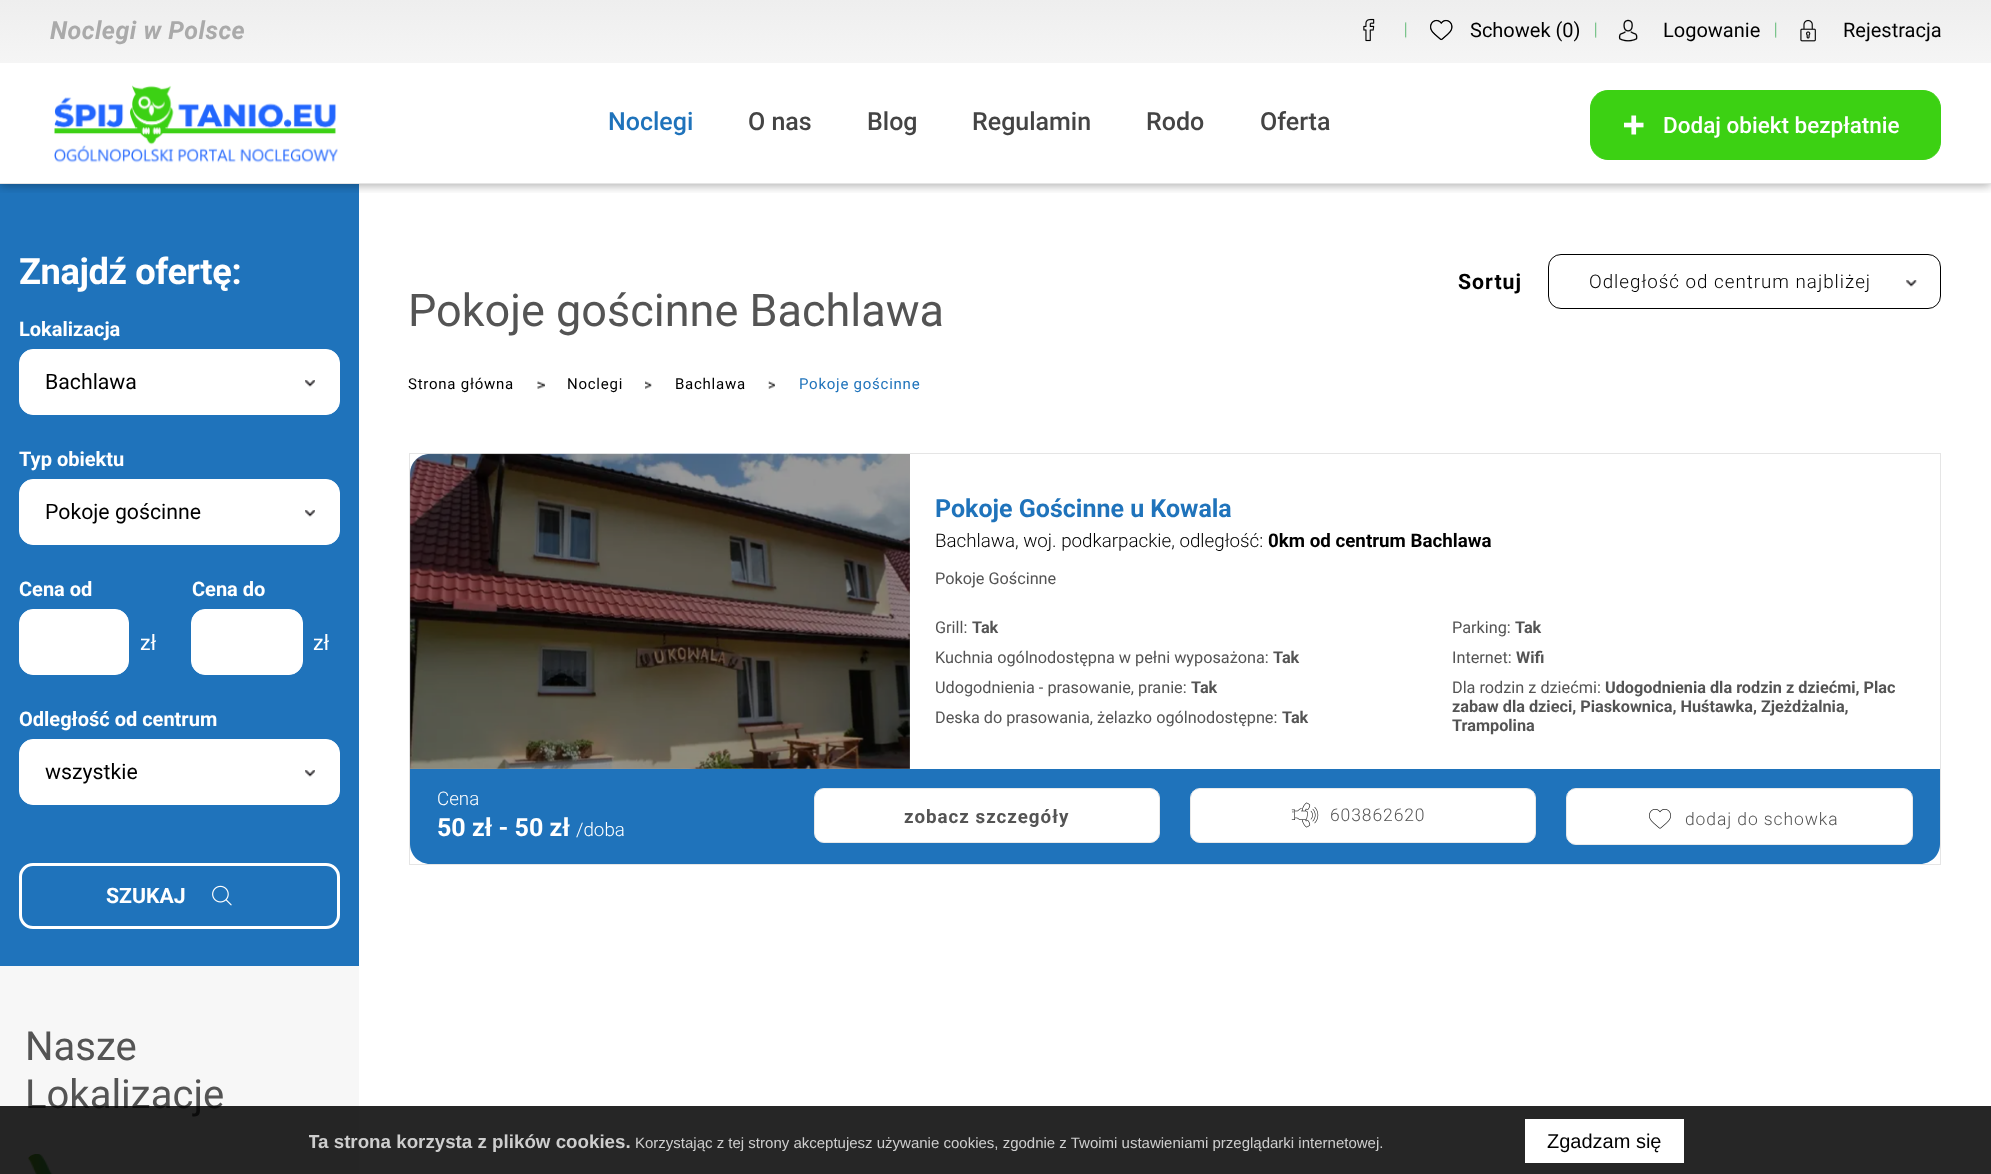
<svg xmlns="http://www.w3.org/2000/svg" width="1991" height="1174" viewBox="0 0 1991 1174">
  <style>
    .t1 { font: italic bold 25px Roboto; letter-spacing: 0.5px; fill: #aaa; }
    .t2 { font: 20px Roboto; fill: #000; }
    .t3 { font: 500 25px Roboto; fill: #1f73bb; }
    .t4 { font: 500 25px Roboto; fill: #444; }
    .t5 { font: 500 22.5px Roboto; fill: #fff; }
    .t6 { font: bold 36.25px Roboto; letter-spacing: -0.4px; fill: #fff; }
    .t7 { font: bold 20px Roboto; fill: #fff; }
    .t8 { font: 21.25px Roboto; fill: #000; }
    .t9 { font: 21.25px Roboto; fill: #fff; }
    .t10 { font: bold 21.25px Roboto; fill: #fff; }
    .t11 { font: 40px Roboto; fill: #545454; }
    .t12 { font: bold 21.25px Roboto; letter-spacing: 1px; fill: #000; }
    .t13 { font: 300 18.75px Roboto; letter-spacing: 1px; fill: #000; }
    .t14 { font: 45px Roboto; fill: #545454; }
    .t15 { font: 15px Roboto; letter-spacing: 0.75px; fill: #000; }
    .t16 { font: 15px Roboto; letter-spacing: 0.75px; fill: #1f73bb; }
    .t17 { font: bold 25px Roboto; fill: #1f73bb; }
    .t18 { font: 300 18.75px Roboto; fill: #000; }
    .t19 { font: bold 18.75px Roboto; fill: #000; }
    .t20 { font: 16.25px Roboto; fill: #545454; }
    .t21 { font: bold 16.25px Roboto; fill: #545454; }
    .t22 { font: 300 18.75px Roboto; fill: #fff; }
    .t23 { font: bold 25px Roboto; fill: #fff; }
    .t24 { font: bold 18.75px Roboto; letter-spacing: 1px; fill: #545454; }
    .t25 { font: 300 17.5px Roboto; letter-spacing: 0.9px; fill: #545454; }
    .t26 { font: bold 18.75px Liberation Sans; fill: #cecece; }
    .t27 { font: 15px Liberation Sans; fill: #cecece; }
    .t28 { font: 20px Liberation Sans; fill: #000; }
  </style>
  <defs>
    <clipPath id="clip1"><rect x="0" y="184" width="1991" height="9"/></clipPath>
    <linearGradient id="g1" gradientUnits="userSpaceOnUse" x1="996" y1="0" x2="996" y2="63"><stop offset="0" stop-color="#eee"/><stop offset="1" stop-color="#f5f5f5"/></linearGradient>
    <clipPath id="clip2"><rect x="309" y="1128" width="1204" height="26"/></clipPath>
  </defs>
  <rect width="100%" height="100%" fill="#fff"/>
  <rect x="0" y="184" width="359" height="782" fill="#1f73bb"/>
  <g clip-path="url(#clip1)">
    <rect x="0" y="3" width="1991" height="183" fill="#0000004d" filter="blur(5px)"/>
  </g>
  <rect x="0" y="183" width="1991" height="1" fill="#e5e5e5"/>
  <rect x="0" y="0" width="1991" height="63" fill="url(#g1)"/>
  <text x="50" y="39" class="t1">Noclegi w Polsce</text>
  <image x="1363" y="18" width="12" height="24" href="images/1.png"/>
  <image x="1405" y="22" width="2" height="17" href="images/2.png"/>
  <image x="1430" y="19" width="23" height="22" href="images/3.png"/>
  <text x="1470" y="37" class="t2">Schowek (0)</text>
  <image x="1595" y="21" width="2" height="17" href="images/4.png"/>
  <image x="1618" y="19" width="20" height="23" href="images/5.png"/>
  <text x="1663" y="37" class="t2">Logowanie</text>
  <image x="1775" y="21" width="2" height="17" href="images/4.png"/>
  <image x="1800" y="19" width="16" height="23" href="images/6.png"/>
  <text x="1843" y="37" class="t2">Rejestracja</text>
  <image x="54" y="85" width="284" height="78" href="images/7.png"/>
  <text x="608" y="130" class="t3">Noclegi</text>
  <text x="748" y="130" class="t4">O nas</text>
  <text x="867" y="130" class="t4">Blog</text>
  <text x="972" y="130" class="t4">Regulamin</text>
  <text x="1146" y="130" class="t4">Rodo</text>
  <text x="1260" y="130" class="t4">Oferta</text>
  <rect x="1590.5" y="90.5" width="350" height="69" rx="17.5" fill="#3cd113" stroke="#3cd113"/>
  <image x="1624" y="115" width="20" height="20" href="images/8.png"/>
  <text x="1663" y="133" class="t5">Dodaj obiekt bezpłatnie</text>
  <rect x="0" y="966" width="359" height="208" fill="#f7f7f7"/>
  <text x="19" y="284" class="t6">Znajdź ofertę:</text>
  <text x="19" y="336" class="t7">Lokalizacja</text>
  <rect x="19.5" y="349.5" width="320" height="65" rx="13.5" fill="#fff" stroke="#fff"/>
  <text x="45" y="389" class="t8">Bachlawa</text>
  <image x="305" y="380" width="10" height="7" href="images/9.png"/>
  <text x="19" y="466" class="t7">Typ obiektu</text>
  <rect x="19.5" y="479.5" width="320" height="65" rx="13.5" fill="#fff" stroke="#fff"/>
  <text x="45" y="519" class="t8">Pokoje gościnne</text>
  <image x="305" y="510" width="10" height="7" href="images/9.png"/>
  <text x="19" y="596" class="t7">Cena od</text>
  <rect x="19.5" y="609.5" width="109" height="65" rx="13.5" fill="#fff" stroke="#fff"/>
  <text x="140" y="650" class="t9">zł</text>
  <text x="192" y="596" class="t7">Cena do</text>
  <rect x="191.5" y="609.5" width="111" height="65" rx="13.5" fill="#fff" stroke="#fff"/>
  <text x="313" y="650" class="t9">zł</text>
  <text x="19" y="726" class="t7">Odległość od centrum</text>
  <rect x="19.5" y="739.5" width="320" height="65" rx="13.5" fill="#fff" stroke="#fff"/>
  <text x="45" y="779" class="t8">wszystkie</text>
  <image x="305" y="770" width="10" height="7" href="images/9.png"/>
  <rect x="20.5" y="864.5" width="318" height="63" rx="12.5" fill="none" stroke="#fff" stroke-width="3"/>
  <text x="106" y="903" class="t10">SZUKAJ</text>
  <image x="212" y="885" width="20" height="21" href="images/10.png"/>
  <text x="25" y="1060" class="t11">Nasze</text>
  <text x="25" y="1108" class="t11">Lokalizacje</text>
  <image x="27" y="1154" width="26" height="20" href="images/11.png"/>
  <text x="1458" y="289" class="t12">Sortuj</text>
  <rect x="1548.5" y="254.5" width="392" height="54" rx="12.5" fill="none" stroke="#000"/>
  <text x="1589" y="288" class="t13">Odległość od centrum najbliżej</text>
  <image x="1906" y="280" width="11" height="7" href="images/12.png"/>
  <text x="408" y="326" class="t14">Pokoje gościnne Bachlawa</text>
  <text x="408" y="389" class="t15">Strona główna</text>
  <image x="537" y="381" width="8" height="8" href="images/13.png"/>
  <text x="567" y="389" class="t15">Noclegi</text>
  <image x="645" y="381" width="7" height="8" href="images/14.png"/>
  <text x="675" y="389" class="t15">Bachlawa</text>
  <image x="768" y="381" width="7" height="8" href="images/15.png"/>
  <text x="799" y="389" class="t16">Pokoje gościnne</text>
  <rect x="409.5" y="453.5" width="1531" height="411" fill="none" stroke="#e5e5e5"/>
  <image x="410" y="453" width="500" height="316" href="images/16.png"/>
  <path d="M430 454H910V769H410V474C410 463 419 454 430 454Z" fill="#00000066"/>
  <text x="935" y="517" class="t17">Pokoje Gościnne u Kowala</text>
  <text x="935" y="547" class="t18">Bachlawa, woj. podkarpackie, odległość:</text>
  <text x="1268" y="547" class="t19">0km od centrum Bachlawa</text>
  <text x="935" y="584" class="t20">Pokoje Gościnne</text>
  <text x="935" y="633" class="t20">Grill:</text>
  <text x="972" y="633" class="t21">Tak</text>
  <text x="1452" y="633" class="t20">Parking:</text>
  <text x="1515" y="633" class="t21">Tak</text>
  <text x="935" y="663" class="t20">Kuchnia ogólnodostępna w pełni wyposażona:</text>
  <text x="1273" y="663" class="t21">Tak</text>
  <text x="1452" y="663" class="t20">Internet:</text>
  <text x="1516" y="663" class="t21">Wifi</text>
  <text x="935" y="693" class="t20">Udogodnienia - prasowanie, pranie:</text>
  <text x="1191" y="693" class="t21">Tak</text>
  <text x="1452" y="693" class="t20">Dla rodzin z dziećmi:</text>
  <text x="1605" y="693" class="t21">Udogodnienia dla rodzin z dziećmi, Plac</text>
  <text x="1452" y="712" class="t21">zabaw dla dzieci, Piaskownica, Huśtawka, Zjeżdżalnia,</text>
  <text x="1452" y="731" class="t21">Trampolina</text>
  <text x="935" y="723" class="t20">Deska do prasowania, żelazko ogólnodostępne:</text>
  <text x="1282" y="723" class="t21">Tak</text>
  <path d="M410 769H1940V844C1940 855 1931 864 1920 864H430C419 864 410 855 410 844Z" fill="#1f73bb"/>
  <text x="437" y="805" class="t22">Cena</text>
  <text x="437" y="836" class="t23">50 zł - 50 zł</text>
  <text x="576" y="836" class="t22">/doba</text>
  <rect x="814.5" y="788.5" width="345" height="54" rx="9.5" fill="#fff" stroke="#e9e9e9"/>
  <text x="904" y="823" class="t24">zobacz szczegóły</text>
  <rect x="1190.5" y="788.5" width="345" height="54" rx="9.5" fill="#fff" stroke="#e9e9e9"/>
  <image x="1291" y="802" width="28" height="26" href="images/17.png"/>
  <text x="1330" y="821" class="t25">603862620</text>
  <rect x="1566.5" y="788.5" width="346" height="56" rx="9.5" fill="#fff" stroke="#e9e9e9"/>
  <image x="1649" y="809" width="22" height="20" href="images/18.png"/>
  <text x="1685" y="825" class="t25">dodaj do schowka</text>
  <rect x="0" y="1106" width="1991" height="68" fill="#000000d9"/>
  <g clip-path="url(#clip2)">
    <text x="308" y="1148" class="t26">Ta strona korzysta z plików cookies.</text>
  </g>
  <text x="635" y="1148" class="t27">Korzystając z tej strony akceptujesz używanie cookies, zgodnie z Twoimi ustawieniami przeglądarki internetowej.</text>
  <rect x="1525" y="1119" width="159" height="44" fill="#fff"/>
  <text x="1547" y="1148" class="t28">Zgadzam się</text>
</svg>
